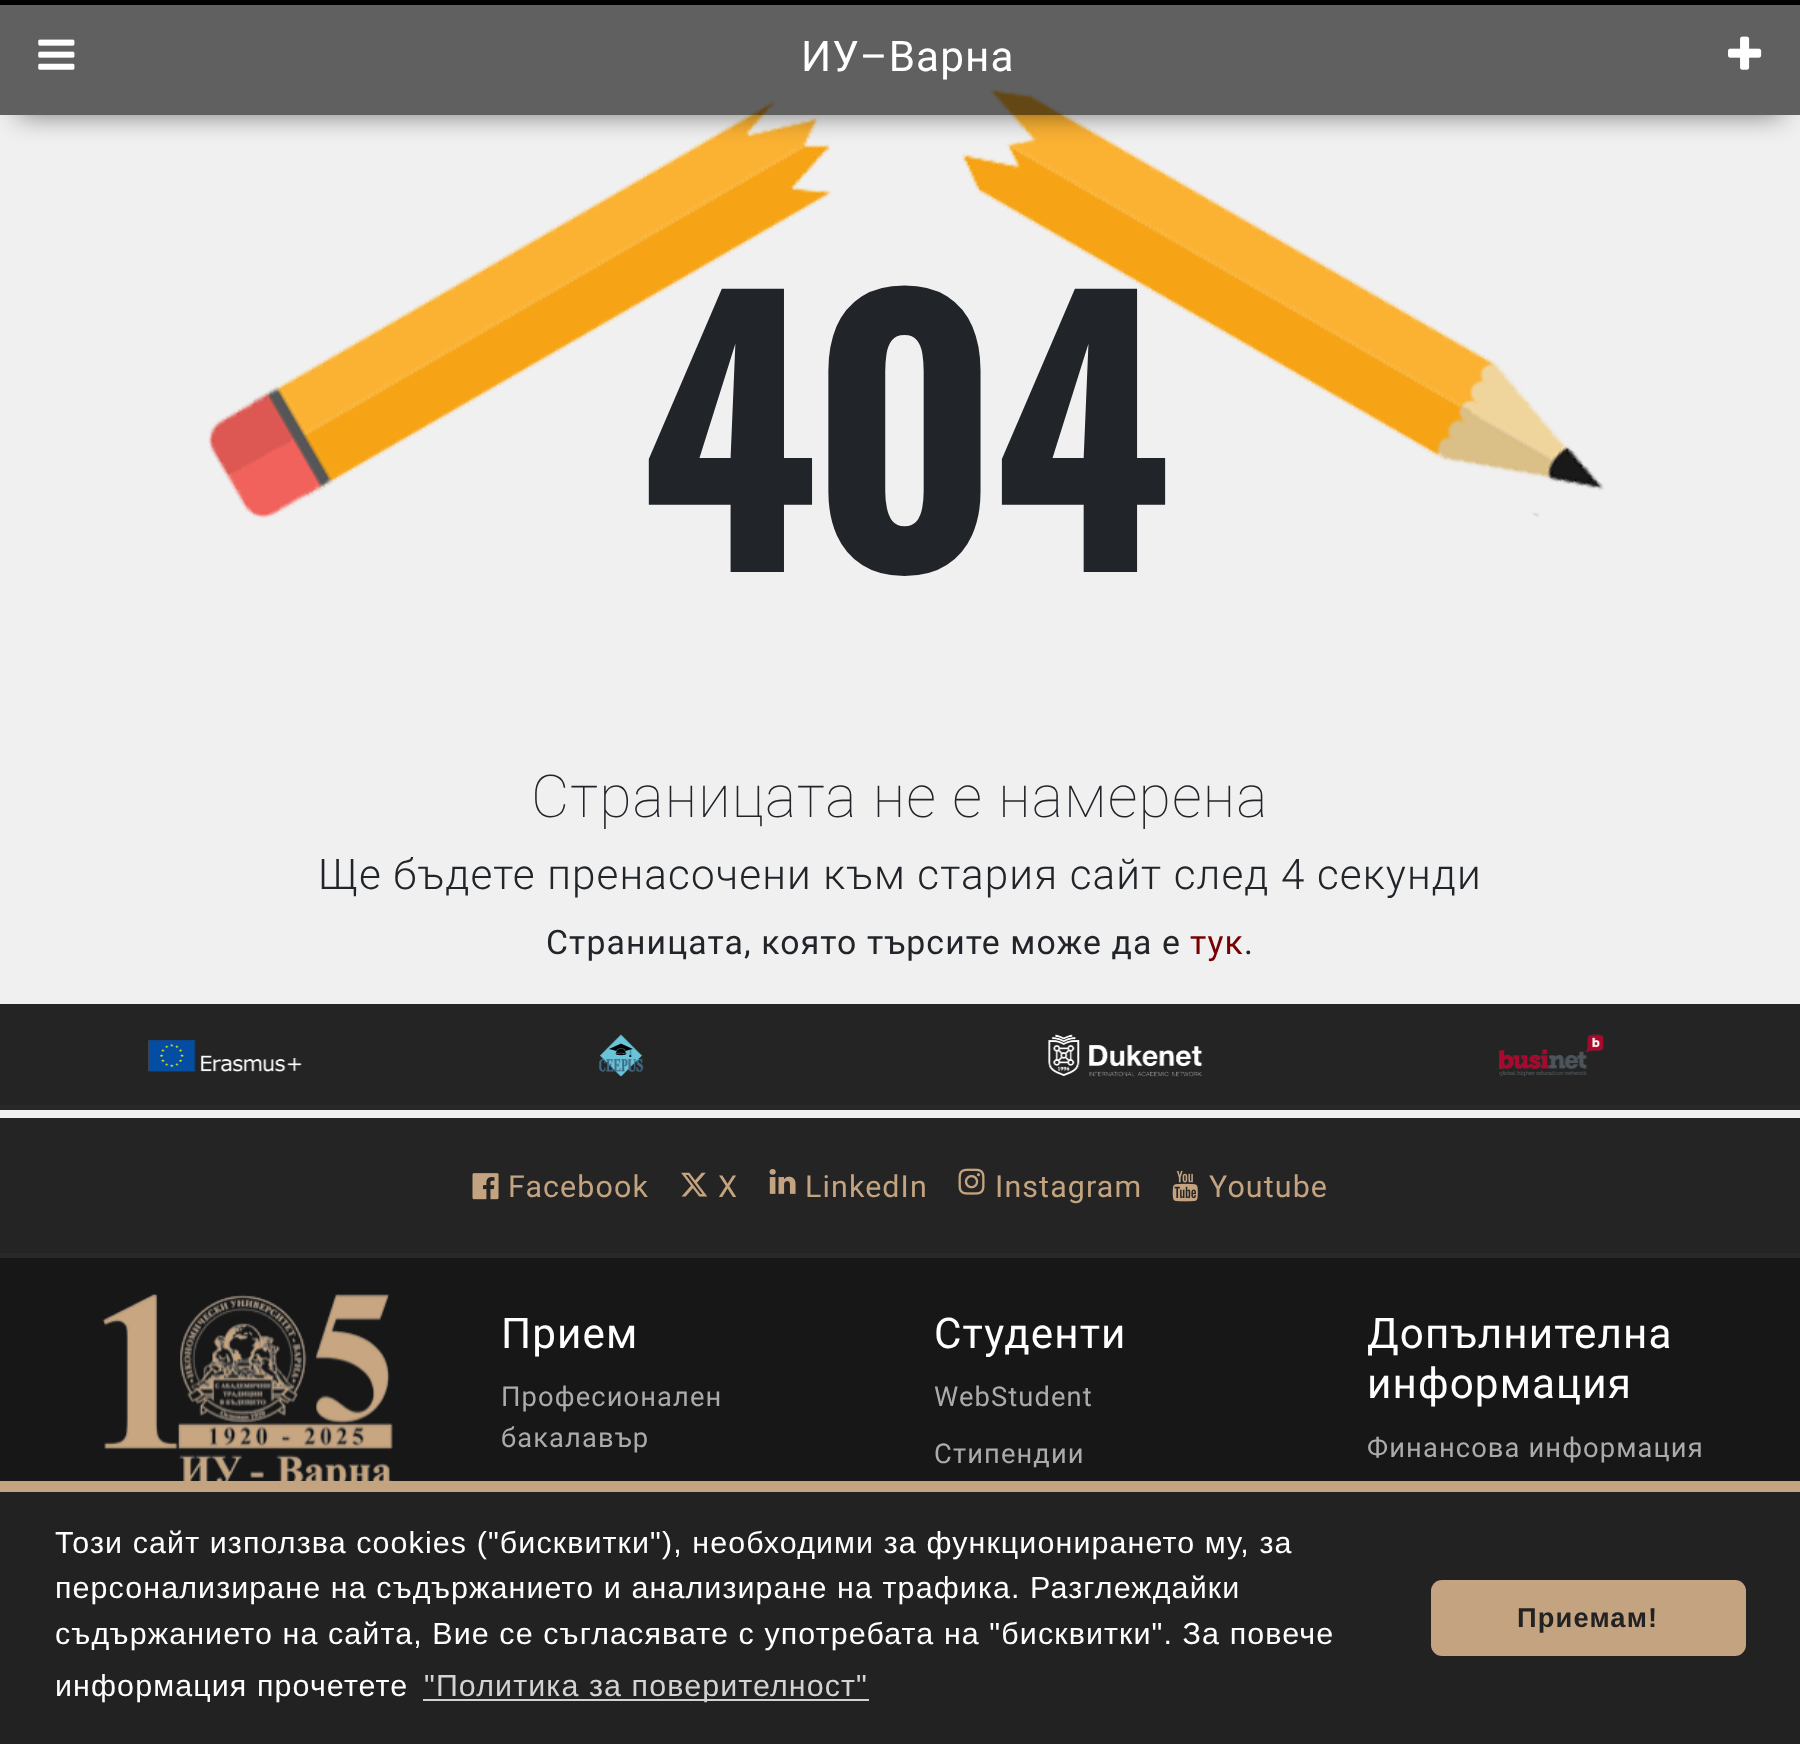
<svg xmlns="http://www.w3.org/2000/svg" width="1800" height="1744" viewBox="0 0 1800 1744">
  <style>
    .t1 { font: 42.2px Roboto; letter-spacing: 1.12px; fill: #fff; }
    .t2 { font: bold 338px Oswald; letter-spacing: 1.12px; fill: #212529; }
    .t3 { font: 100 59px Roboto; letter-spacing: 1.12px; fill: #212529; }
    .t4 { font: 300 42.2px Roboto; letter-spacing: 1.12px; fill: #212529; }
    .t5 { font: 33.75px Roboto; letter-spacing: 1.12px; fill: #212529; }
    .t6 { font: 33.75px Roboto; letter-spacing: 1.12px; fill: #700; }
    .t7 { font: 30.4px Roboto; letter-spacing: 1.12px; fill: #c4a480; }
    .t8 { font: 27.3px Roboto; letter-spacing: 1.12px; fill: #ababab; }
    .t9 { font: 30.4px Liberation Sans; letter-spacing: 1.12px; fill: #fff; }
    .t10 { font: 30.4px Liberation Sans; letter-spacing: 1.12px; fill: #d3d3d3; }
    .t11 { font: bold 27.3px Liberation Sans; letter-spacing: 1.12px; fill: #222; }
  </style>
  <defs>
    <clipPath id="clip1"><path d="M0 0H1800V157H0ZM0 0H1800V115H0Z" clip-rule="evenodd"/></clipPath>
  </defs>
  <rect width="100%" height="100%" fill="#f0f0f0"/>
  <image x="208" y="99" width="625" height="420" href="images/3.png"/>
  <image x="961" y="88" width="643" height="429" href="images/4.png"/>
  <g clip-path="url(#clip1)">
    <rect x="18" y="36" width="1764" height="79" fill="#00000080" filter="blur(13.5px)"/>
  </g>
  <rect x="0" y="0" width="1800" height="5" fill="#010101"/>
  <rect x="0" y="5" width="1800" height="110" fill="#00000099"/>
  <image x="38" y="39" width="37" height="31" href="images/1.png"/>
  <text x="801" y="71" class="t1">ИУ–Варна</text>
  <image x="1728" y="36" width="34" height="34" href="images/2.png"/>
  <text x="638" y="572" class="t2">404</text>
  <text x="531" y="817" class="t3">Страницата не е намерена</text>
  <text x="318" y="889" class="t4">Ще бъдете пренасочени към стария сайт след 4 секунди</text>
  <text x="546" y="954" class="t5">Страницата, която търсите може да е</text>
  <text x="1190" y="954" class="t6">тук</text>
  <text x="1244" y="954" class="t5">.</text>
  <rect x="0" y="1004" width="1800" height="101" fill="#242424"/>
  <rect x="0" y="1105" width="1800" height="5" fill="#282828"/>
  <image x="148" y="1040" width="154" height="32" href="images/5.png"/>
  <image x="599" y="1034" width="45" height="43" href="images/6.png"/>
  <image x="1048" y="1034" width="155" height="43" href="images/7.png"/>
  <image x="1499" y="1034" width="105" height="43" href="images/8.png"/>
  <rect x="0" y="1258" width="1800" height="223" fill="#171717"/>
  <rect x="0" y="1118" width="1800" height="135" fill="#242424"/>
  <rect x="0" y="1253" width="1800" height="5" fill="#282828"/>
  <image x="472" y="1173" width="27" height="27" href="images/9.png"/>
  <text x="508" y="1197" class="t7">Facebook</text>
  <image x="681" y="1172" width="27" height="25" href="images/10.png"/>
  <text x="718" y="1197" class="t7">X</text>
  <image x="769" y="1169" width="27" height="25" href="images/11.png"/>
  <text x="805" y="1197" class="t7">LinkedIn</text>
  <image x="958" y="1168" width="27" height="27" href="images/12.png"/>
  <text x="995" y="1197" class="t7">Instagram</text>
  <image x="1172" y="1170" width="26" height="32" href="images/13.png"/>
  <text x="1209" y="1197" class="t7">Youtube</text>
  <image x="102" y="1294" width="291" height="187" href="images/14.png"/>
  <text x="501" y="1348" class="t1">Прием</text>
  <text x="501" y="1406" class="t8">Професионален</text>
  <text x="501" y="1447" class="t8">бакалавър</text>
  <text x="934" y="1348" class="t1">Студенти</text>
  <text x="934" y="1406" class="t8">WebStudent</text>
  <text x="934" y="1463" class="t8">Стипендии</text>
  <text x="1367" y="1348" class="t1">Допълнителна</text>
  <text x="1367" y="1398" class="t1">информация</text>
  <text x="1367" y="1457" class="t8">Финансова информация</text>
  <rect x="0" y="1492" width="1800" height="252" fill="#222"/>
  <rect x="0" y="1481" width="1800" height="11" fill="#c4a480"/>
  <text x="55" y="1553" class="t9">Този сайт използва cookies ("бисквитки"), необходими за функционирането му, за</text>
  <text x="55" y="1598" class="t9">персонализиране на съдържанието и анализиране на трафика. Разглеждайки</text>
  <text x="55" y="1644" class="t9">съдържанието на сайта, Вие се съгласявате с употребата на "бисквитки". За повече</text>
  <text x="55" y="1696" class="t9">информация прочетете</text>
  <rect x="423" y="1699" width="446" height="2" fill="#d3d3d3"/>
  <text x="424" y="1696" class="t10">"Политика за поверителност"</text>
  <rect x="1431" y="1580" width="315" height="76" rx="11" fill="#c4a480"/>
  <text x="1517" y="1627" class="t11">Приемам!</text>
</svg>
